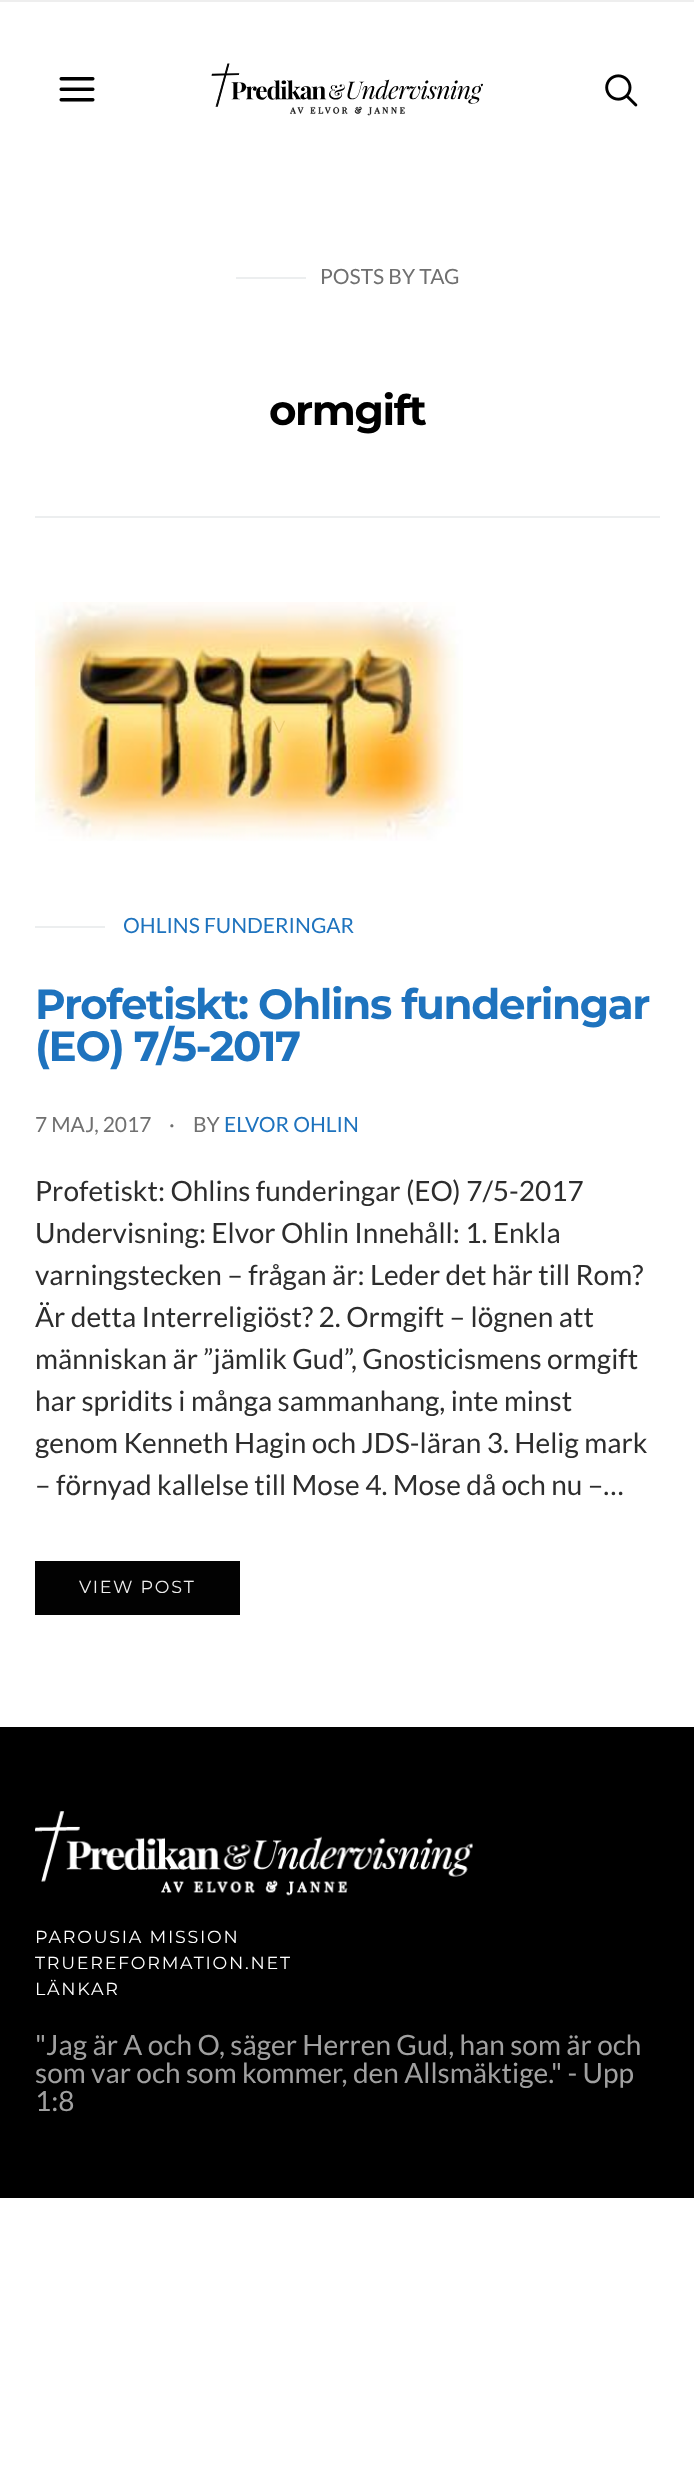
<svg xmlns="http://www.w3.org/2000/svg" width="694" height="2473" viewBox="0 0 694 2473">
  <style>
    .t1 { font: 21px Lato; fill: #707070; }
    .t2 { font: bold 42px Montserrat; letter-spacing: -1.4px; fill: #000; }
    .t3 { font: 17.5px Montserrat; letter-spacing: 1.75px; fill: #edcd74; }
    .t4 { font: 21px Lato; fill: #1e73be; }
    .t5 { font: bold 42px Montserrat; letter-spacing: -1.4px; fill: #1e73be; }
    .t6 { font: 28px Lato; fill: #2d2d2d; }
    .t7 { font: 17.5px Montserrat; letter-spacing: 1.75px; fill: #eee; }
    .t8 { font: 17.5px Montserrat; letter-spacing: 1.75px; fill: #fff; }
    .t9 { font: 28px Lato; fill: #a0a0a0; }
  </style>
  <rect width="100%" height="100%" fill="#fff"/>
  <rect x="0" y="0" width="694" height="2" fill="#eee"/>
  <image x="59" y="77" width="36" height="25" href="images/1.png"/>
  <image x="211" y="63" width="272" height="53" href="images/2.png"/>
  <image x="605" y="74" width="33" height="33" href="images/3.png"/>
  <rect x="35" y="516" width="625" height="2" fill="#eceeef"/>
  <rect x="236" y="277" width="70" height="2" fill="#eceeef"/>
  <text x="320" y="284" class="t1">POSTS BY TAG</text>
  <text x="269" y="425" class="t2">ormgift</text>
  <image x="35" y="602" width="428" height="239" href="images/4.png"/>
  <text x="273" y="733" class="t3">V</text>
  <rect x="35" y="926" width="70" height="2" fill="#eceeef"/>
  <text x="123" y="933" class="t4">OHLINS FUNDERINGAR</text>
  <text x="35" y="1019" class="t5">Profetiskt: Ohlins funderingar</text>
  <text x="35" y="1061" class="t5">(EO) 7/5-2017</text>
  <text x="35" y="1132" class="t1">7 MAJ, 2017</text>
  <text x="169" y="1132" class="t1">·</text>
  <text x="193" y="1132" class="t1">BY</text>
  <text x="224" y="1132" class="t4">ELVOR OHLIN</text>
  <text x="35" y="1201" class="t6">Profetiskt: Ohlins funderingar (EO) 7/5-2017</text>
  <text x="35" y="1243" class="t6">Undervisning: Elvor Ohlin Innehåll: 1. Enkla</text>
  <text x="35" y="1285" class="t6">varningstecken – frågan är: Leder det här till Rom?</text>
  <text x="35" y="1327" class="t6">Är detta Interreligiöst? 2. Ormgift – lögnen att</text>
  <text x="35" y="1369" class="t6">människan är ”jämlik Gud”, Gnosticismens ormgift</text>
  <text x="35" y="1411" class="t6">har spridits i många sammanhang, inte minst</text>
  <text x="35" y="1453" class="t6">genom Kenneth Hagin och JDS-läran 3. Helig mark</text>
  <text x="35" y="1495" class="t6">– förnyad kallelse till Mose 4. Mose då och nu –…</text>
  <rect x="35" y="1561" width="205" height="54" fill="#020202"/>
  <text x="79" y="1593" class="t7">VIEW POST</text>
  <rect x="0" y="1727" width="694" height="471" fill="#000"/>
  <image x="35" y="1811" width="438" height="85" href="images/5.png"/>
  <text x="35" y="1943" class="t8">PAROUSIA MISSION</text>
  <text x="35" y="1969" class="t8">TRUEREFORMATION.NET</text>
  <text x="35" y="1995" class="t8">LÄNKAR</text>
  <text x="35" y="2055" class="t9">"Jag är A och O, säger Herren Gud, han som är och</text>
  <text x="35" y="2083" class="t9">som var och som kommer, den Allsmäktige." - Upp</text>
  <text x="35" y="2111" class="t9">1:8</text>
</svg>
